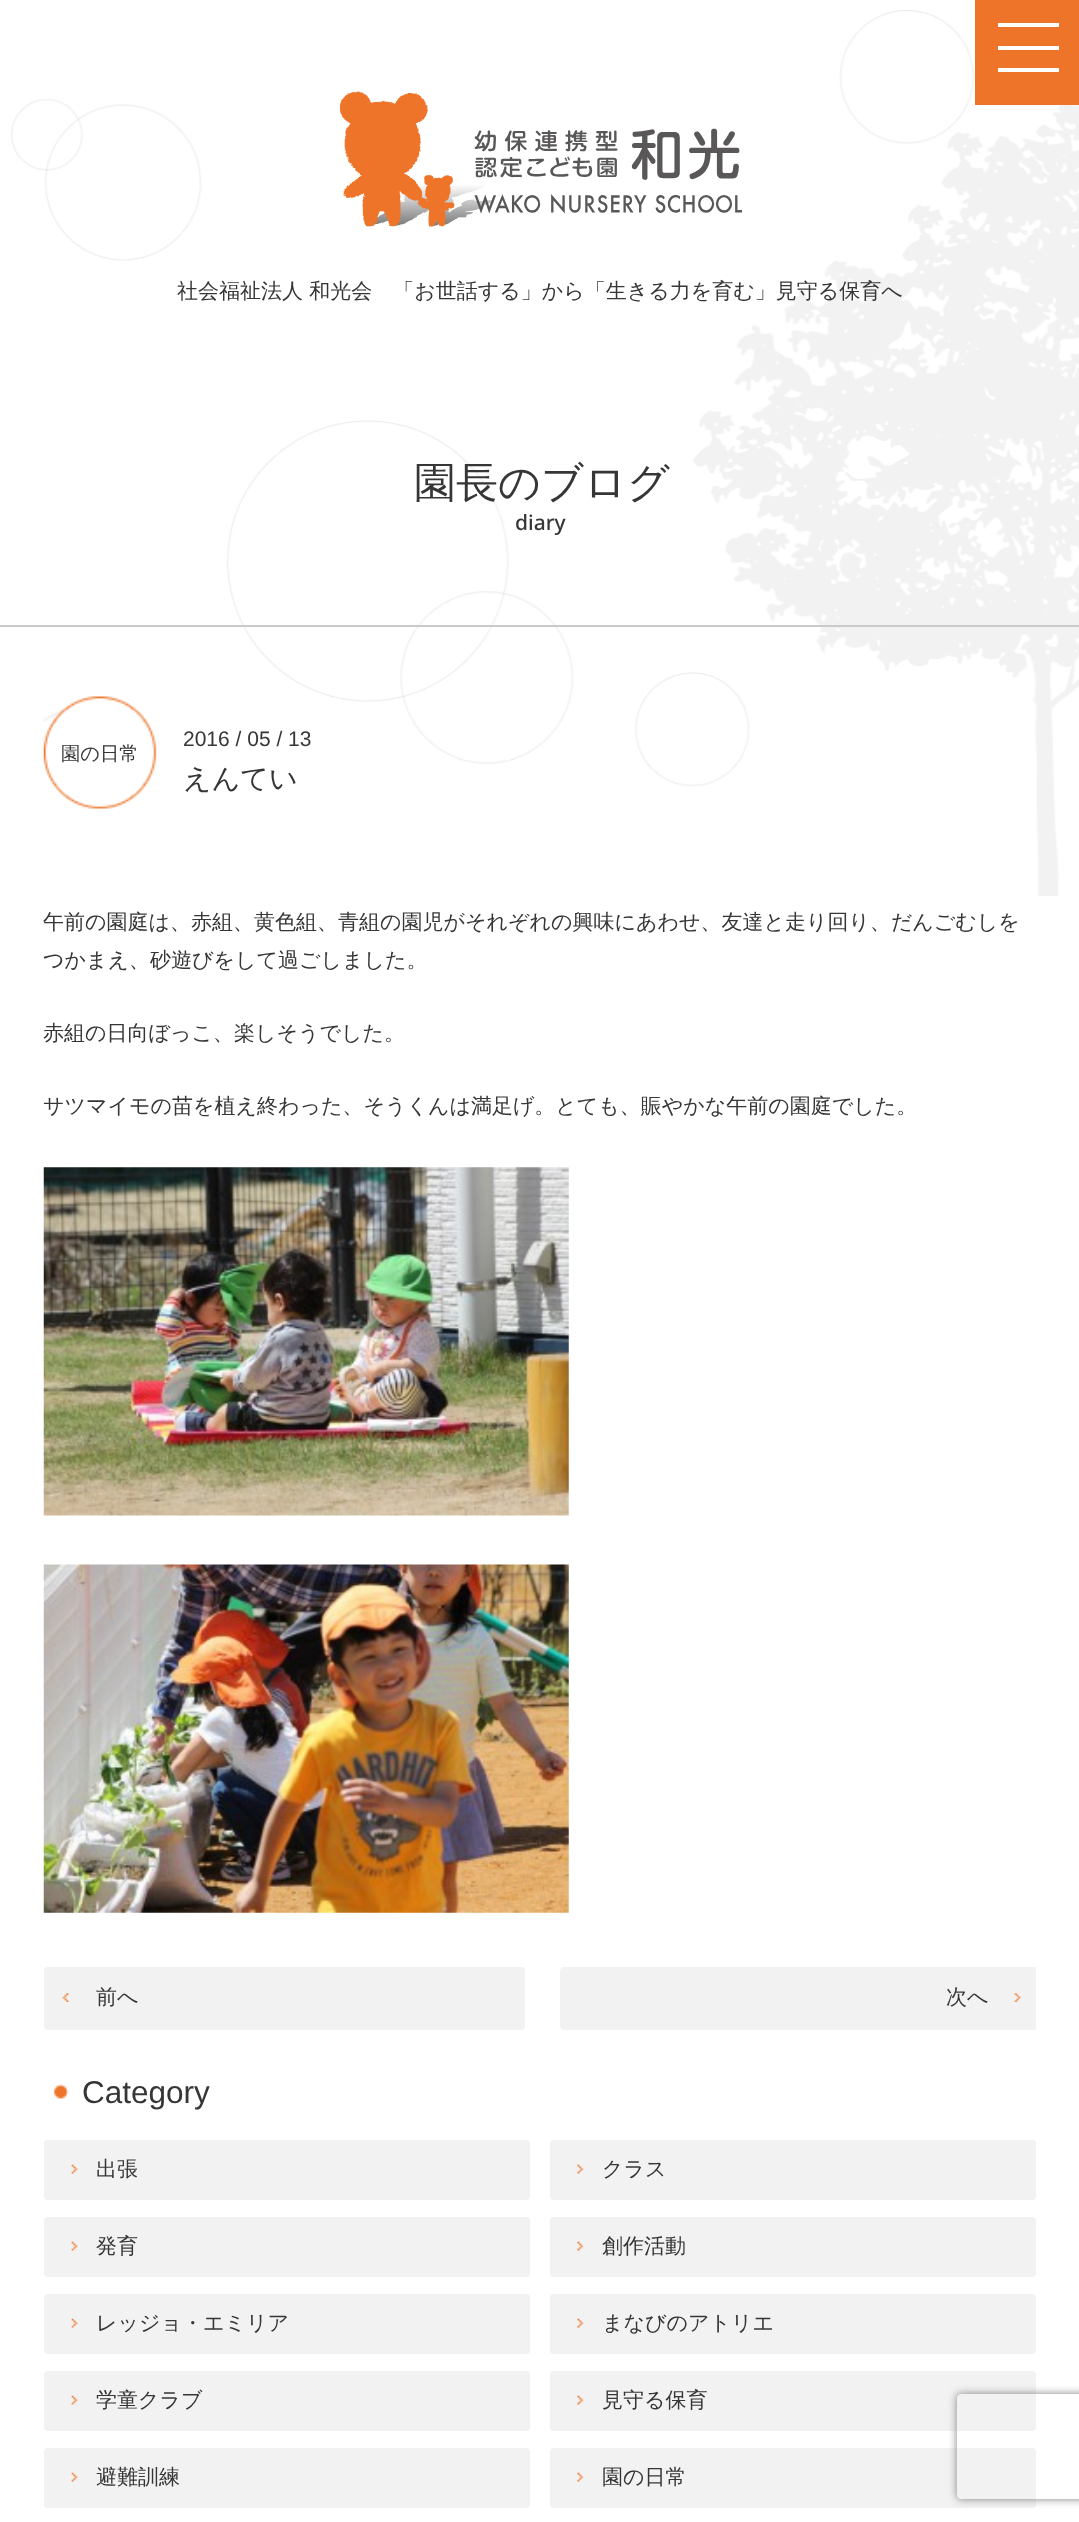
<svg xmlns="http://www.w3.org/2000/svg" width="1079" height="2522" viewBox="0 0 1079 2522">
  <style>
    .t1 { font: 500 21px WenQuanYi Zen Hei; fill: #363636; }
    .t2 { font: 42px Noto Sans; fill: #363636; }
    .t3 { font: 500 21px Noto Sans; fill: #363636; }
    .t4 { font: 500 19.25px WenQuanYi Zen Hei; fill: #363636; }
    .t5 { font: 21px Liberation Sans; fill: #363636; }
    .t6 { font: 500 28px WenQuanYi Zen Hei; fill: #363636; }
    .t7 { font: 31.5px Liberation Sans; fill: #363636; }
  </style>
  <defs>
    <clipPath id="clip1"><path d="M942 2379H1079V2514H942ZM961 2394H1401C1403 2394 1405 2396 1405 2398V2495C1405 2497 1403 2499 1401 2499H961C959 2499 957 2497 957 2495V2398C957 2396 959 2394 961 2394Z" clip-rule="evenodd"/></clipPath>
  </defs>
  <rect width="100%" height="100%" fill="#fff"/>
  <image x="11" y="10" width="1068" height="886" href="images/1.png"/>
  <rect x="975" y="0" width="104" height="105" fill="#ed7429"/>
  <rect x="998" y="46" width="61" height="4" fill="#fff"/>
  <rect x="998" y="23" width="61" height="4" fill="#fff"/>
  <rect x="998" y="68" width="61" height="4" fill="#fff"/>
  <image x="340" y="91" width="402" height="136" href="images/2.png"/>
  <text x="177" y="298" class="t1">社会福祉法人 和光会　「お世話する」から「生きる力を育む」見守る保育へ</text>
  <text x="414" y="497" class="t2">園長のブログ</text>
  <text x="515" y="530" class="t3">diary</text>
  <rect x="0" y="625" width="1079" height="2" fill="#cacaca"/>
  <image x="43" y="696" width="114" height="113" href="images/3.png"/>
  <text x="61" y="760" class="t4">園の日常</text>
  <text x="183" y="746" class="t5">2016 / 05 / 13</text>
  <text x="183" y="788" class="t6">えんてい</text>
  <text x="43" y="929" class="t1">午前の園庭は、赤組、黄色組、青組の園児がそれぞれの興味にあわせ、友達と走り回り、だんごむしを</text>
  <text x="43" y="967" class="t1">つかまえ、砂遊びをして過ごしました。</text>
  <text x="43" y="1040" class="t1">赤組の日向ぼっこ、楽しそうでした。</text>
  <text x="43" y="1113" class="t1">サツマイモの苗を植え終わった、そうくんは満足げ。とても、賑やかな午前の園庭でした。</text>
  <image x="43" y="1167" width="526" height="349" href="images/4.png"/>
  <image x="43" y="1564" width="526" height="349" href="images/5.png"/>
  <rect x="44" y="1967" width="481" height="63" rx="4" fill="#f2f2f2"/>
  <image x="62" y="1993" width="7" height="9" href="images/6.png"/>
  <text x="96" y="2004" class="t1">前へ</text>
  <path d="M564 1967H1036V2030H564C562 2030 560 2028 560 2026V1971C560 1969 562 1967 564 1967Z" fill="#f2f2f2"/>
  <image x="1014" y="1993" width="7" height="9" href="images/7.png"/>
  <text x="946" y="2004" class="t1">次へ</text>
  <image x="53" y="2084" width="16" height="15" href="images/8.png"/>
  <text x="82" y="2103" class="t7">Category</text>
  <rect x="44" y="2140" width="486" height="60" rx="4" fill="#f2f2f2"/>
  <image x="71" y="2164" width="7" height="10" href="images/9.png"/>
  <text x="96" y="2176" class="t1">出張</text>
  <rect x="550" y="2140" width="486" height="60" rx="4" fill="#f2f2f2"/>
  <image x="577" y="2164" width="7" height="10" href="images/10.png"/>
  <text x="602" y="2176" class="t1">クラス</text>
  <rect x="44" y="2217" width="486" height="60" rx="4" fill="#f2f2f2"/>
  <image x="71" y="2241" width="7" height="10" href="images/9.png"/>
  <text x="96" y="2253" class="t1">発育</text>
  <rect x="550" y="2217" width="486" height="60" rx="4" fill="#f2f2f2"/>
  <image x="577" y="2241" width="7" height="10" href="images/10.png"/>
  <text x="602" y="2253" class="t1">創作活動</text>
  <rect x="44" y="2294" width="486" height="60" rx="4" fill="#f2f2f2"/>
  <image x="71" y="2318" width="7" height="10" href="images/9.png"/>
  <text x="96" y="2330" class="t1">レッジョ・エミリア</text>
  <rect x="550" y="2294" width="486" height="60" rx="4" fill="#f2f2f2"/>
  <image x="577" y="2318" width="7" height="10" href="images/10.png"/>
  <text x="602" y="2330" class="t1">まなびのアトリエ</text>
  <rect x="44" y="2371" width="486" height="60" rx="4" fill="#f2f2f2"/>
  <image x="71" y="2395" width="7" height="10" href="images/9.png"/>
  <text x="96" y="2407" class="t1">学童クラブ</text>
  <rect x="550" y="2371" width="486" height="60" rx="4" fill="#f2f2f2"/>
  <image x="577" y="2395" width="7" height="10" href="images/10.png"/>
  <text x="602" y="2407" class="t1">見守る保育</text>
  <rect x="44" y="2448" width="486" height="60" rx="4" fill="#f2f2f2"/>
  <image x="71" y="2472" width="7" height="10" href="images/9.png"/>
  <text x="96" y="2484" class="t1">避難訓練</text>
  <rect x="550" y="2448" width="486" height="60" rx="4" fill="#f2f2f2"/>
  <image x="577" y="2472" width="7" height="10" href="images/10.png"/>
  <text x="602" y="2484" class="t1">園の日常</text>
  <g clip-path="url(#clip1)">
    <rect x="957" y="2394" width="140" height="105" rx="4" fill="#808080" filter="blur(4.5px)"/>
  </g>
</svg>
